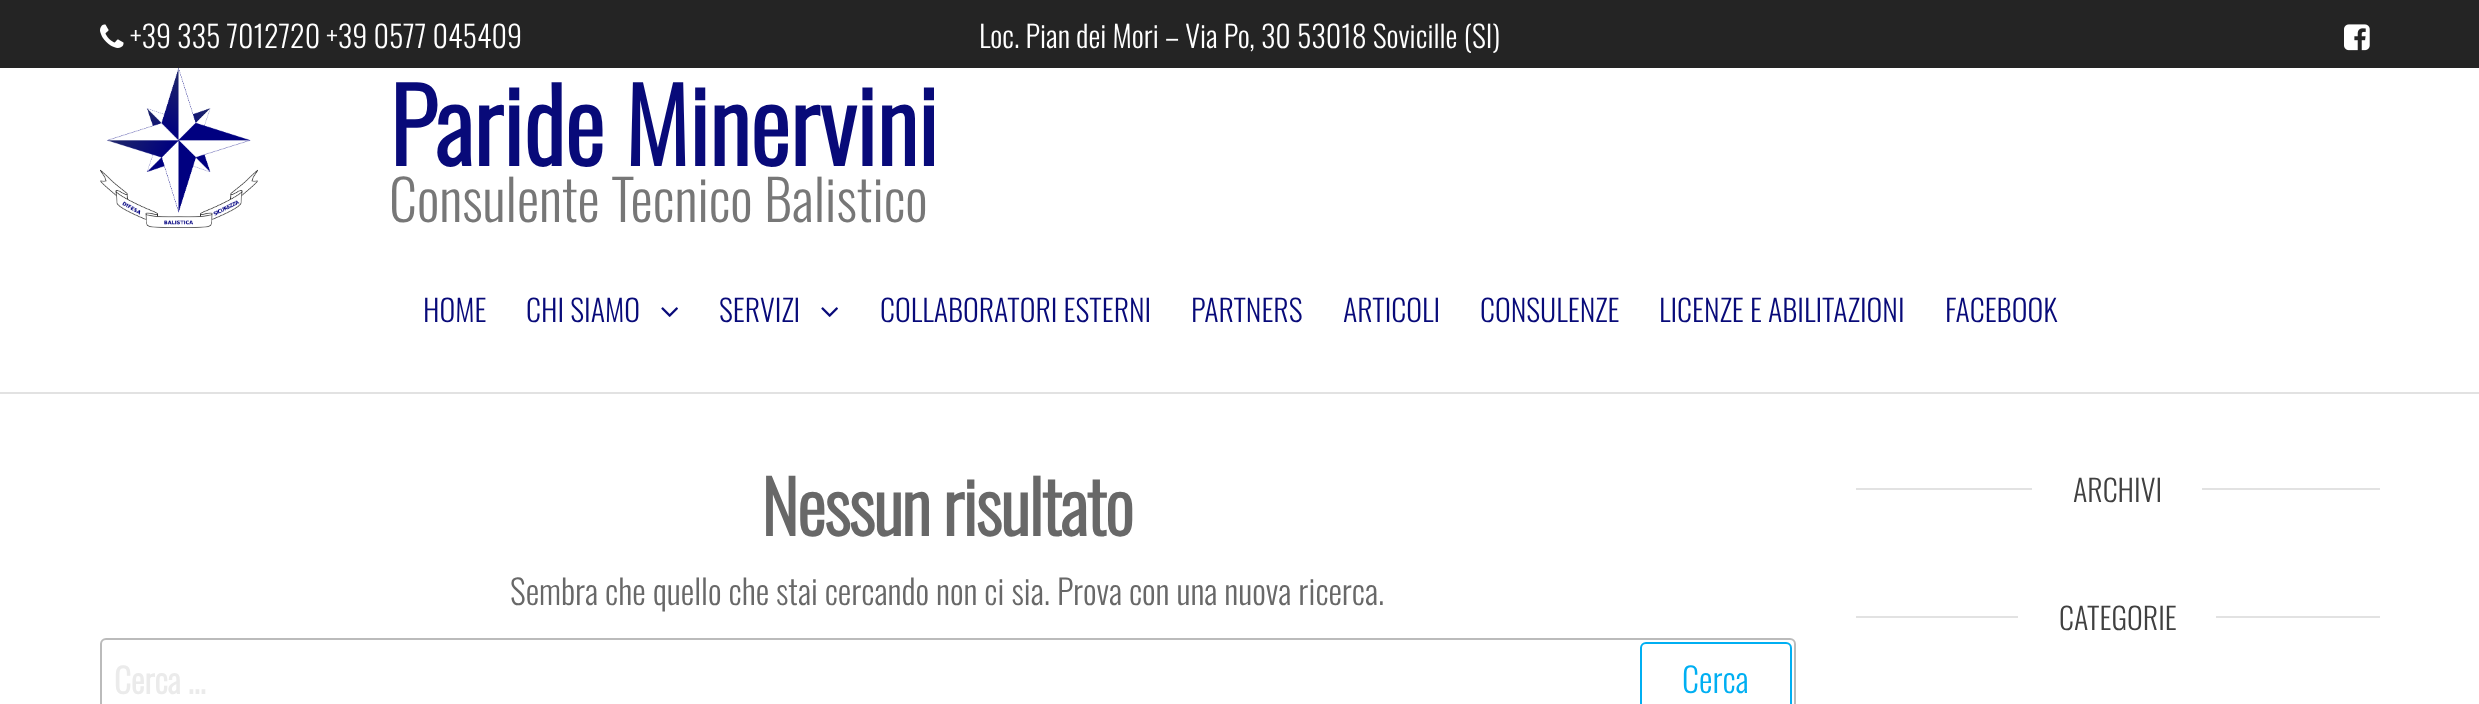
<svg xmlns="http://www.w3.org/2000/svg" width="2479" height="704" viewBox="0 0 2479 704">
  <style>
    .t1 { font: 300 30px Oswald; fill: #fff; }
    .t2 { font: bold 100px Oswald; fill: #080a79; }
    .t3 { font: 300 56px Oswald; fill: #777; }
    .t4 { font: 300 30px Oswald; fill: #080a79; }
    .t5 { font: bold 72px Oswald; letter-spacing: -1.5px; fill: #686868; }
    .t6 { font: 300 34px Oswald; fill: #686868; }
    .t7 { font: bold 34px Oswald; fill: #ebebeb; }
    .t8 { font: 300 34px Oswald; fill: #00aff2; }
    .t9 { font: 300 30px Oswald; fill: #404040; }
  </style>
  <rect width="100%" height="100%" fill="#fff"/>
  <rect x="0" y="0" width="2479" height="68" fill="#242424"/>
  <image x="100" y="24" width="24" height="24" href="images/1.png"/>
  <text x="130" y="48" class="t1">+39 335 7012720 +39 0577 045409</text>
  <text x="979" y="48" class="t1">Loc. Pian dei Mori – Via Po, 30 53018 Sovicille (SI)</text>
  <image x="2344" y="24" width="26" height="27" href="images/2.png"/>
  <rect x="0" y="392" width="2479" height="2" fill="#e2e2e2"/>
  <image x="100" y="68" width="158" height="160" href="images/3.png"/>
  <text x="389" y="166" class="t2">Paride Minervini</text>
  <text x="389" y="222" class="t3">Consulente Tecnico Balistico</text>
  <text x="423" y="322" class="t4">HOME</text>
  <text x="526" y="322" class="t4">CHI SIAMO</text>
  <image x="661" y="307" width="17" height="10" href="images/4.png"/>
  <text x="719" y="322" class="t4">SERVIZI</text>
  <image x="821" y="307" width="17" height="10" href="images/4.png"/>
  <text x="880" y="322" class="t4">COLLABORATORI ESTERNI</text>
  <text x="1191" y="322" class="t4">PARTNERS</text>
  <text x="1343" y="322" class="t4">ARTICOLI</text>
  <text x="1480" y="322" class="t4">CONSULENZE</text>
  <text x="1659" y="322" class="t4">LICENZE E ABILITAZIONI</text>
  <text x="1945" y="322" class="t4">FACEBOOK</text>
  <text x="761" y="536" class="t5">Nessun risultato</text>
  <text x="510" y="605" class="t6">Sembra che quello che stai cercando non ci sia. Prova con una nuova ricerca.</text>
  <rect x="101" y="639" width="1694" height="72" rx="5" fill="none" stroke="#bbb" stroke-width="2"/>
  <text x="114" y="694" class="t7">Cerca …</text>
  <rect x="1641" y="643" width="150" height="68" rx="5" fill="none" stroke="#00aff2" stroke-width="2"/>
  <text x="1682" y="693" class="t8">Cerca</text>
  <rect x="1856" y="488" width="524" height="2" fill="#e2e2e2"/>
  <rect x="2032" y="488" width="170" height="2" fill="#fff"/>
  <text x="2073" y="502" class="t9">ARCHIVI</text>
  <rect x="1856" y="616" width="524" height="2" fill="#e2e2e2"/>
  <rect x="2018" y="616" width="198" height="2" fill="#fff"/>
  <text x="2059" y="630" class="t9">CATEGORIE</text>
</svg>
